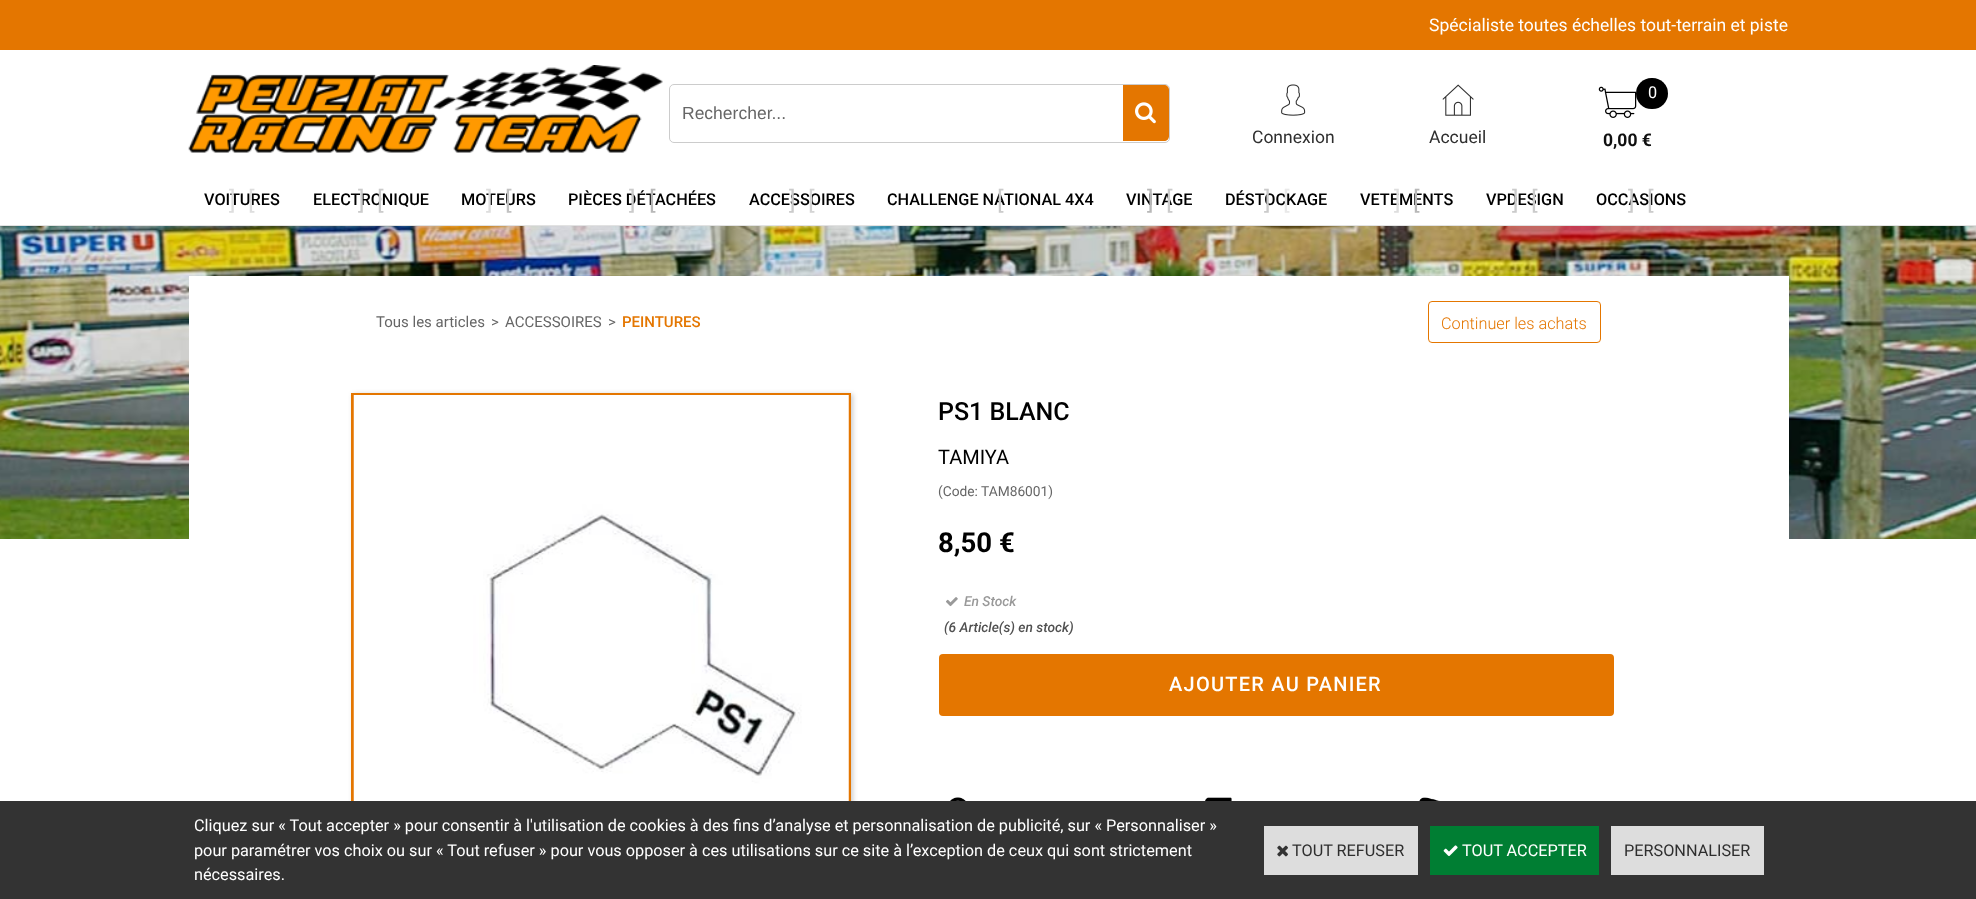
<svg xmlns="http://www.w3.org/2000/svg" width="1976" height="899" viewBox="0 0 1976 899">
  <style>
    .t1 { font: 17.5px Roboto; fill: #fff; }
    .t2 { font: 17.5px Liberation Sans; fill: #666; }
    .t3 { font: 17.5px Roboto; fill: #2e2e2e; }
    .t4 { font: 16.25px Roboto; fill: #fff; }
    .t5 { font: bold 17.5px Roboto; fill: #0f0f0f; }
    .t6 { font: 500 16.25px Roboto; fill: #000; }
    .t7 { font: 25px Roboto; fill: #dedede; }
    .t8 { font: 25px Roboto; fill: #cbcbcb; }
    .t9 { font: 25px Roboto; fill: #c2c2c2; }
    .t10 { font: 25px Roboto; fill: #b8b8b8; }
    .t11 { font: 25px Roboto; fill: #d4d4d4; }
    .t12 { font: 25px Roboto; fill: #e9e9e9; }
    .t13 { font: 15px Roboto; fill: #666; }
    .t14 { font: 500 15px Roboto; fill: #e47600; }
    .t15 { font: 300 16.25px Roboto; fill: #e47600; }
    .t16 { font: 500 25px Roboto; fill: #000; }
    .t17 { font: 20px Roboto; fill: #000; }
    .t18 { font: 13.75px Roboto; fill: #666; }
    .t19 { font: bold 27.5px Roboto; fill: #000; }
    .t20 { font: italic 500 13.75px Roboto; fill: #999; }
    .t21 { font: italic 500 13.75px Roboto; fill: #505050; }
    .t22 { font: 500 20px Roboto; letter-spacing: 1.25px; fill: #fff; }
    .t23 { font: 16.25px Roboto; fill: #2e2e2e; }
  </style>
  <rect width="100%" height="100%" fill="#fff"/>
  <image x="0" y="226" width="1976" height="313" href="images/1.png"/>
  <rect x="0" y="0" width="1976" height="50" fill="#e47600"/>
  <rect x="0" y="225" width="1976" height="1" fill="#e2e2e2"/>
  <text x="1429" y="31" class="t1">Spécialiste toutes échelles tout-terrain et piste</text>
  <image x="188" y="65" width="475" height="88" href="images/2.png"/>
  <rect x="669.5" y="84.5" width="500" height="58" rx="4.5" fill="none" stroke="#ccc"/>
  <text x="682" y="119" class="t2">Rechercher...</text>
  <path d="M1123 85H1164C1167 85 1169 87 1169 90V136C1169 139 1167 141 1164 141H1123Z" fill="#e47600"/>
  <image x="1135" y="102" width="21" height="22" href="images/3.png"/>
  <image x="1281" y="84" width="25" height="32" href="images/4.png"/>
  <text x="1252" y="143" class="t3">Connexion</text>
  <image x="1442" y="84" width="32" height="32" href="images/5.png"/>
  <text x="1429" y="143" class="t3">Accueil</text>
  <image x="1598" y="86" width="39" height="32" href="images/6.png"/>
  <rect x="1636" y="78" width="32" height="31" rx="15.5" fill="#000"/>
  <text x="1648" y="98" class="t4">0</text>
  <text x="1603" y="146" class="t5">0,00 €</text>
  <text x="204" y="205" class="t6">VOITURES</text>
  <text x="229" y="209" class="t7">]</text>
  <text x="248" y="209" class="t7">[</text>
  <text x="313" y="205" class="t6">ELECTRONIQUE</text>
  <text x="358" y="209" class="t8">]</text>
  <text x="377" y="209" class="t8">[</text>
  <text x="461" y="205" class="t6">MOTEURS</text>
  <text x="486" y="209" class="t7">]</text>
  <text x="505" y="209" class="t9">[</text>
  <text x="568" y="205" class="t6">PIÈCES DÉTACHÉES</text>
  <text x="629" y="209" class="t8">]</text>
  <text x="649" y="209" class="t10">[</text>
  <text x="749" y="205" class="t6">ACCESSOIRES</text>
  <text x="789" y="209" class="t8">]</text>
  <text x="808" y="209" class="t11">[</text>
  <text x="887" y="205" class="t6">CHALLENGE NATIONAL 4X4</text>
  <text x="997" y="209" class="t8">[</text>
  <text x="1126" y="205" class="t6">VINTAGE</text>
  <text x="1147" y="209" class="t10">]</text>
  <text x="1166" y="209" class="t8">[</text>
  <text x="1225" y="205" class="t6">DÉSTOCKAGE</text>
  <text x="1264" y="209" class="t8">]</text>
  <text x="1283" y="209" class="t12">[</text>
  <text x="1360" y="205" class="t6">VETEMENTS</text>
  <text x="1394" y="209" class="t7">]</text>
  <text x="1413" y="209" class="t10">[</text>
  <text x="1486" y="205" class="t6">VPDESIGN</text>
  <text x="1512" y="209" class="t8">]</text>
  <text x="1531" y="209" class="t8">[</text>
  <text x="1596" y="205" class="t6">OCCASIONS</text>
  <text x="1628" y="209" class="t8">]</text>
  <text x="1647" y="209" class="t8">[</text>
  <rect x="189" y="276" width="1600" height="263" fill="#fff"/>
  <text x="376" y="327" class="t13">Tous les articles</text>
  <text x="491" y="327" class="t13">&gt;</text>
  <text x="505" y="327" class="t13">ACCESSOIRES</text>
  <text x="608" y="327" class="t13">&gt;</text>
  <text x="622" y="327" class="t14">PEINTURES</text>
  <rect x="1428.5" y="301.5" width="172" height="41" rx="3.5" fill="none" stroke="#e47600"/>
  <text x="1441" y="329" class="t15">Continuer les achats</text>
  <rect x="353" y="394" width="500" height="500" fill="#00000033" filter="blur(2.5px)"/>
  <rect x="352.5" y="394.5" width="497" height="497" fill="none" stroke="#e47600" stroke-width="3"/>
  <image x="353" y="395" width="496" height="406" href="images/7.png"/>
  <text x="938" y="420" class="t16">PS1 BLANC</text>
  <text x="938" y="464" class="t17">TAMIYA</text>
  <text x="938" y="496" class="t18">(Code: TAM86001)</text>
  <text x="938" y="552" class="t19">8,50 €</text>
  <image x="946" y="597" width="12" height="10" href="images/8.png"/>
  <text x="964" y="606" class="t20">En Stock</text>
  <text x="944" y="632" class="t21">(6 Article(s) en stock)</text>
  <rect x="939" y="654" width="675" height="62" rx="4" fill="#e47600"/>
  <text x="1169" y="691" class="t22">AJOUTER AU PANIER</text>
  <image x="950" y="797" width="16" height="4" href="images/9.png"/>
  <image x="1205" y="797" width="27" height="4" href="images/10.png"/>
  <image x="1419" y="797" width="21" height="4" href="images/11.png"/>
  <rect x="0" y="801" width="1976" height="98" fill="#333"/>
  <text x="194" y="831" class="t4">Cliquez sur « Tout accepter » pour consentir à l'utilisation de cookies à des fins d’analyse et personnalisation de publicité, sur « Personnaliser »</text>
  <text x="194" y="856" class="t4">pour paramétrer vos choix ou sur « Tout refuser » pour vous opposer à ces utilisations sur ce site à l’exception de ceux qui sont strictement</text>
  <text x="194" y="880" class="t4">nécessaires.</text>
  <rect x="1264" y="826" width="154" height="49" fill="#ddd"/>
  <image x="1277" y="845" width="11" height="12" href="images/12.png"/>
  <text x="1292" y="856" class="t23">TOUT REFUSER</text>
  <rect x="1430" y="826" width="169" height="49" fill="#007e33"/>
  <image x="1443" y="845" width="15" height="11" href="images/13.png"/>
  <text x="1462" y="856" class="t4">TOUT ACCEPTER</text>
  <rect x="1611" y="826" width="153" height="49" fill="#ddd"/>
  <text x="1624" y="856" class="t23">PERSONNALISER</text>
</svg>
